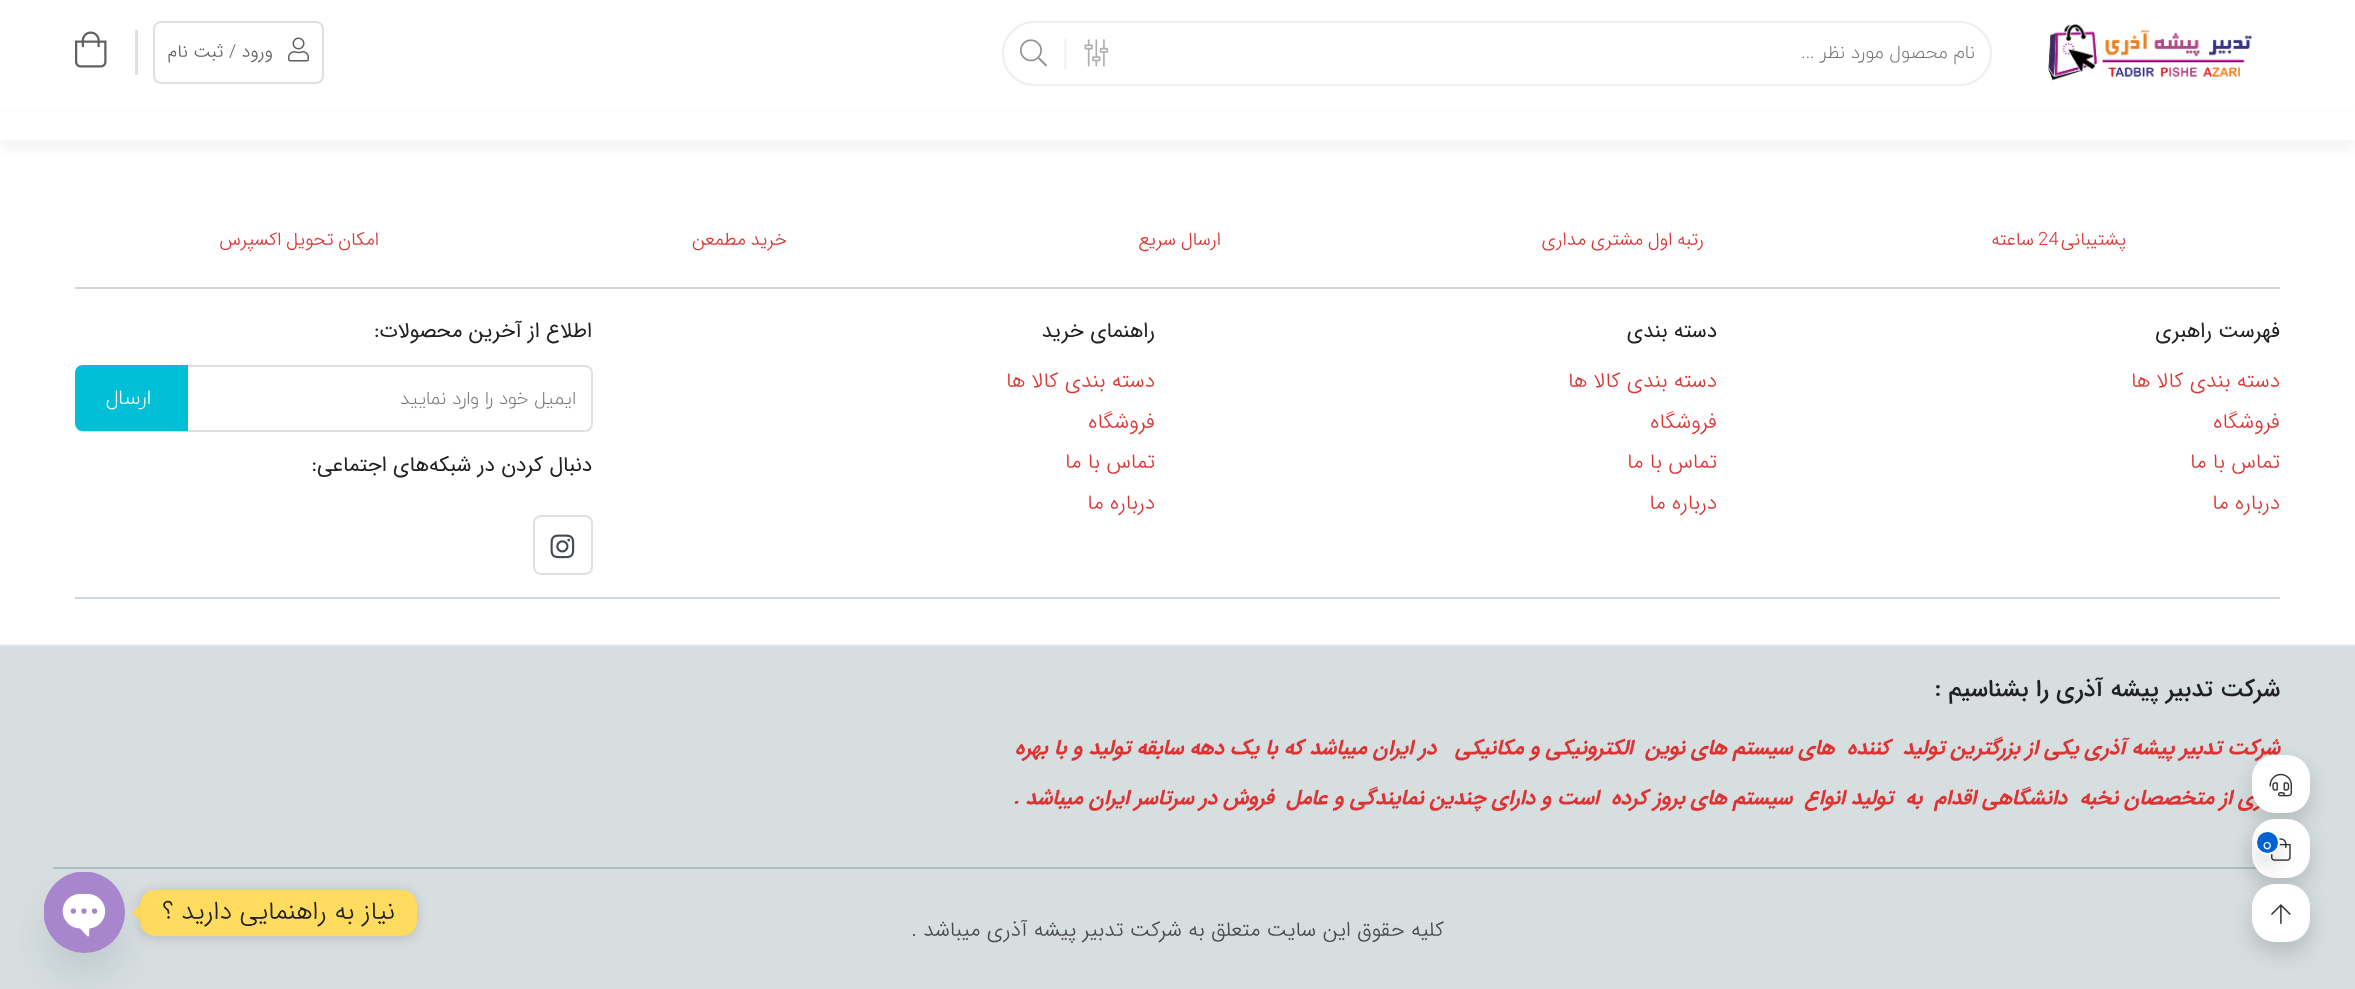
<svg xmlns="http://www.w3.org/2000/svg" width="2355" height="989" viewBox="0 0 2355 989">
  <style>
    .t1 { font: 300 18.4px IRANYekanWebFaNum; direction: rtl; fill: #757575; }
    .t2 { font: 300 18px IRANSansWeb; direction: rtl; fill: #616161; }
    .t3 { font: 300 18.4px IRANSansWeb; letter-spacing: 0.25px; direction: rtl; fill: #d33; }
    .t4 { font: 300 18.4px IRANSansWeb; letter-spacing: 0.25px; fill: #d33; }
    .t5 { font: 21px IRANSansWeb; direction: rtl; fill: #212121; }
    .t6 { font: 300 21px IRANSansWeb; direction: rtl; fill: #d33; }
    .t7 { font: 300 21px IRANYekanWebFaNum; direction: rtl; fill: #fff; }
    .t8 { font: 500 24px IRANSansWeb; direction: rtl; fill: #212121; }
    .t9 { font: italic bold 21px IRANSansWeb; direction: rtl; fill: #d33; }
    .t10 { font: 300 21px IRANSansWeb; direction: rtl; fill: #4a4a4a; }
    .t11 { font: 300 21px IRANYekanWebFaNum; fill: #fff; }
    .t12 { font: 300 25.5px IRANSansWeb; direction: rtl; fill: #212121; }
  </style>
  <rect width="100%" height="100%" fill="#fff"/>
  <image x="2047" y="23" width="206" height="58" href="images/1.png"/>
  <rect x="1003" y="22" width="988" height="63" rx="31.5" fill="none" stroke="#eee" stroke-width="2"/>
  <text x="1975" y="58" class="t1">نام محصول مورد نظر ...</text>
  <rect x="1064" y="39" width="3" height="30" fill="#f3f3f3"/>
  <image x="1020" y="39" width="27" height="28" href="images/2.png"/>
  <image x="1084" y="39" width="25" height="28" href="images/3.png"/>
  <rect x="154" y="22" width="169" height="61" rx="7" fill="none" stroke="#e0e0e2" stroke-width="2"/>
  <image x="288" y="37" width="21" height="25" href="images/4.png"/>
  <text x="273" y="57" class="t2">ورود / ثبت نام</text>
  <rect x="135" y="30" width="3" height="45" fill="#e0e0e2"/>
  <image x="75" y="31" width="32" height="37" href="images/5.png"/>
  <rect x="0" y="116" width="2355" height="34" fill="#0000000a" filter="blur(6px)"/>
  <rect x="0" y="112" width="2355" height="28" fill="#fff"/>
  <rect x="75" y="287" width="2205" height="2" fill="#cfd8dc"/>
  <text x="2126" y="245" class="t3">پشتیبانی</text>
  <text x="2038" y="245" class="t4">24</text>
  <text x="2034" y="245" class="t3">ساعته</text>
  <text x="1704" y="245" word-spacing="-1" class="t3">رتبه اول مشتری مداری</text>
  <text x="1221" y="245" word-spacing="-1" class="t3">ارسال سریع</text>
  <text x="787" y="245" word-spacing="-1" class="t3">خرید مطمعن</text>
  <text x="379" y="245" word-spacing="-1" class="t3">امکان تحویل اکسپرس</text>
  <text x="2280" y="337" class="t5">فهرست راهبری</text>
  <text x="2280" y="387" class="t6">دسته بندی کالا ها</text>
  <text x="2280" y="428" class="t6">فروشگاه</text>
  <text x="2280" y="468" class="t6">تماس با ما</text>
  <text x="2280" y="509" class="t6">درباره ما</text>
  <text x="1717" y="337" class="t5">دسته بندی</text>
  <text x="1717" y="387" class="t6">دسته بندی کالا ها</text>
  <text x="1717" y="428" class="t6">فروشگاه</text>
  <text x="1717" y="468" class="t6">تماس با ما</text>
  <text x="1717" y="509" class="t6">درباره ما</text>
  <text x="1155" y="337" class="t5">راهنمای خرید</text>
  <text x="1155" y="387" class="t6">دسته بندی کالا ها</text>
  <text x="1155" y="428" class="t6">فروشگاه</text>
  <text x="1155" y="468" class="t6">تماس با ما</text>
  <text x="1155" y="509" class="t6">درباره ما</text>
  <text x="592" y="337" class="t5">اطلاع از آخرین محصولات:</text>
  <rect x="76" y="366" width="516" height="65" rx="7" fill="none" stroke="#e0e0e2" stroke-width="2"/>
  <text x="576" y="404" class="t1">ایمیل خود را وارد نمایید</text>
  <path d="M83 365H188V431H83C78.5 431 75 427.5 75 423V373C75 368.5 78.5 365 83 365Z" fill="#00bfd6"/>
  <text x="151" y="404" class="t7">ارسال</text>
  <text x="592" y="471" class="t5">دنبال کردن در شبکه‌های اجتماعی:</text>
  <rect x="534" y="516" width="58" height="58" rx="7" fill="none" stroke="#e0e0e2" stroke-width="2"/>
  <image x="550" y="534" width="25" height="25" href="images/6.png"/>
  <rect x="75" y="597" width="2205" height="2" fill="#cfd8dc"/>
  <rect x="0" y="646" width="2355" height="343" fill="#d7dee0"/>
  <rect x="0" y="644" width="2355" height="2" fill="#e9ecef"/>
  <rect x="53" y="867" width="2204" height="2" fill="#b0bec5"/>
  <text x="2280" y="696" class="t8">شرکت تدبیر پیشه آذری را بشناسیم :</text>
  <text x="2280" y="754" class="t9" xml:space="preserve">شرکت تدبیر پیشه آذری یکی از بزرگترین تولید  کننده  های سیستم های نوین  الکترونیکی و مکانیکی   در ایران میباشد که با یک دهه سابقه تولید و با بهره</text>
  <text x="2280" y="804" class="t9" xml:space="preserve">گیری از متخصصان نخبه  دانشگاهی اقدام  به  تولید انواع  سیستم های بروز کرده  است و دارای چندین نمایندگی و عامل  فروش در سرتاسر ایران میباشد .</text>
  <text x="1444" y="936" class="t10">کلیه حقوق این سایت متعلق به شرکت تدبیر پیشه آذری میباشد .</text>
  <rect x="2252" y="765" width="58" height="59" rx="23" fill="#00000026" filter="blur(10.5px)"/>
  <rect x="2252" y="755" width="58" height="58" rx="23" fill="#fff"/>
  <image x="2269" y="773" width="23" height="24" href="images/7.png"/>
  <rect x="2252" y="830" width="58" height="58" rx="23" fill="#00000026" filter="blur(10.5px)"/>
  <rect x="2252" y="819" width="58" height="59" rx="23" fill="#fff"/>
  <image x="2271" y="838" width="20" height="23" href="images/8.png"/>
  <rect x="2252" y="894" width="58" height="59" rx="23" fill="#00000026" filter="blur(10.5px)"/>
  <rect x="2252" y="884" width="58" height="58" rx="23" fill="#fff"/>
  <rect x="2255" y="840" width="25" height="26" rx="12.5" fill="#00000026" filter="blur(10.5px)"/>
  <circle cx="2267.5" cy="842.5" r="11.5" fill="#0063d1" stroke="#fff" stroke-width="2"/>
  <text x="2262" y="851" class="t11">0</text>
  <image x="2271" y="904" width="20" height="20" href="images/9.png"/>
  <rect x="140" y="891" width="277" height="47" rx="15" fill="#00000026" filter="blur(6px)"/>
  <rect x="140" y="890" width="277" height="46" rx="15" fill="#ffdb5e"/>
  <text x="395" y="919" class="t12">نیاز به راهنمایی دارید ؟</text>
  <path d="M139.5 905V920L132 913Z" fill="#ffdb5e"/>
  <rect x="44" y="896" width="81" height="81" rx="40.5" fill="#49687e29" filter="blur(18px)"/>
  <circle cx="84.5" cy="912.5" r="40.5" fill="#a886cd"/>
  <image x="44" y="872" width="76" height="76" href="images/10.png"/>
</svg>
